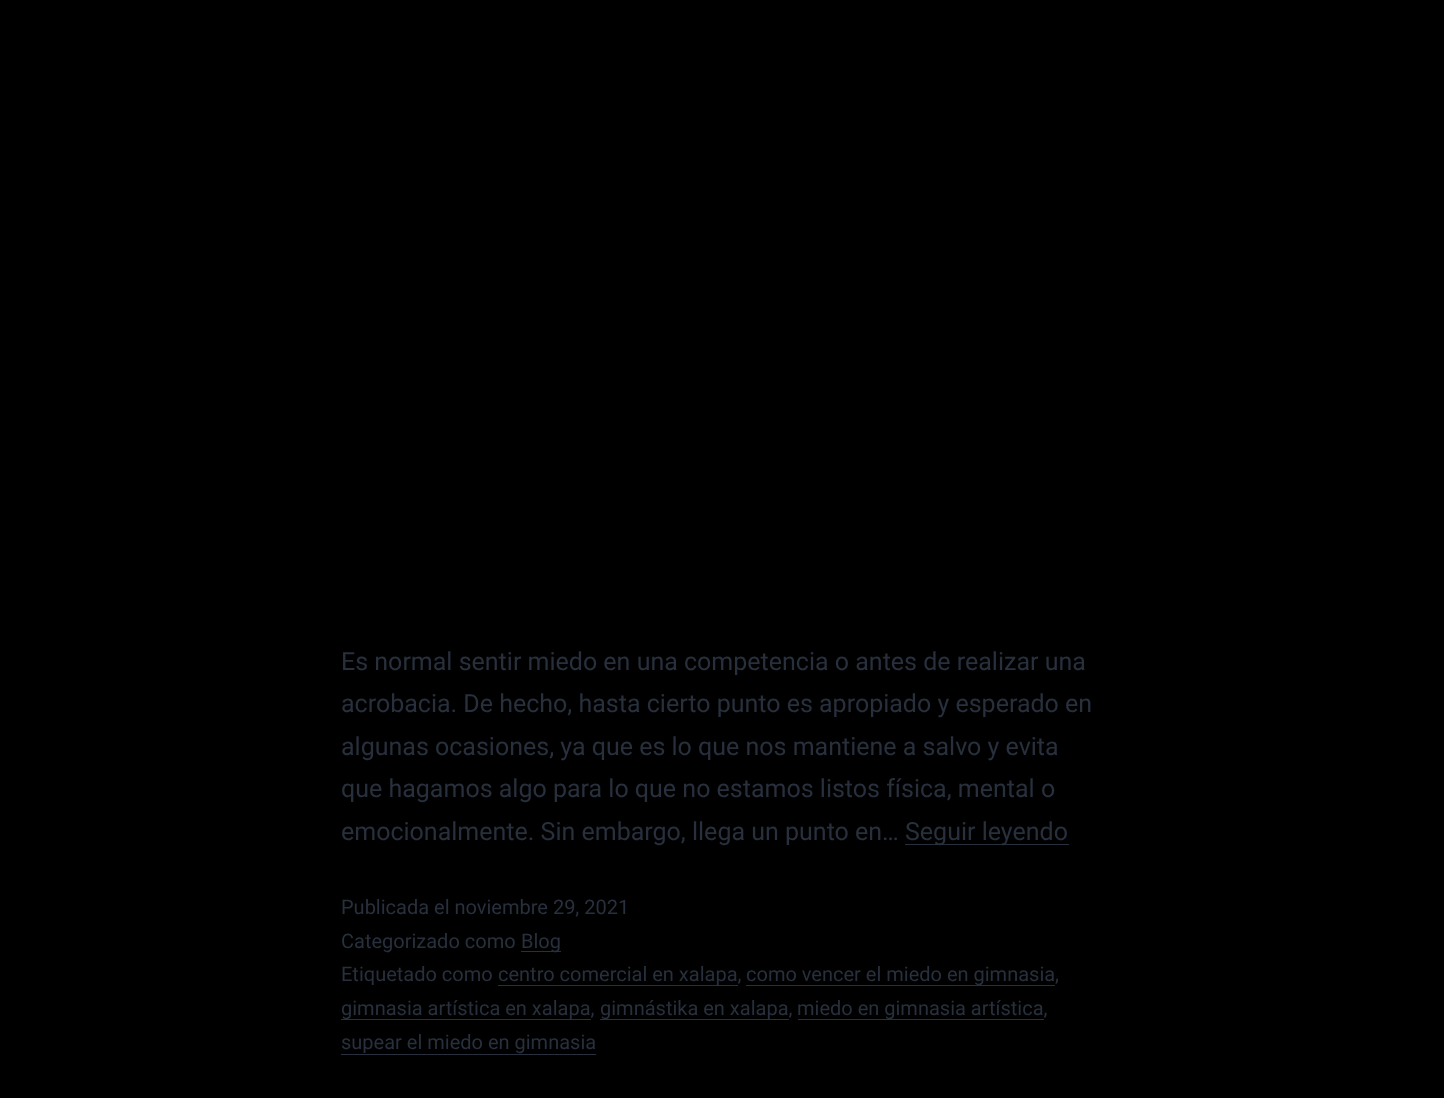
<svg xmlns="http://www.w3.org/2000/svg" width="1444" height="1113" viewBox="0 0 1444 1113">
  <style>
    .t1 { font: 25px Roboto; fill: #28303d; }
    .t2 { font: 20px Roboto; fill: #28303d; }
  </style>
  <rect width="100%" height="100%" fill="#000"/>
  <text x="341" y="670" class="t1">Es normal sentir miedo en una competencia o antes de realizar una</text>
  <text x="341" y="712" class="t1">acrobacia. De hecho, hasta cierto punto es apropiado y esperado en</text>
  <text x="341" y="755" class="t1">algunas ocasiones, ya que es lo que nos mantiene a salvo y evita</text>
  <text x="341" y="797" class="t1">que hagamos algo para lo que no estamos listos física, mental o</text>
  <text x="341" y="840" class="t1">emocionalmente. Sin embargo, llega un punto en…</text>
  <rect x="905" y="844" width="164" height="1" fill="#28303d"/>
  <text x="905" y="840" class="t1">Seguir leyendo</text>
  <text x="341" y="914" class="t2">Publicada el noviembre 29, 2021</text>
  <text x="341" y="948" class="t2">Categorizado como</text>
  <rect x="521" y="951" width="40" height="1" fill="#28303d"/>
  <text x="521" y="948" class="t2">Blog</text>
  <text x="341" y="981" class="t2">Etiquetado como</text>
  <rect x="498" y="985" width="240" height="1" fill="#28303d"/>
  <text x="498" y="981" class="t2">centro comercial en xalapa,</text>
  <rect x="746" y="985" width="309" height="1" fill="#28303d"/>
  <text x="746" y="981" class="t2">como vencer el miedo en gimnasia,</text>
  <rect x="341" y="1019" width="250" height="1" fill="#28303d"/>
  <text x="341" y="1015" class="t2">gimnasia artística en xalapa,</text>
  <rect x="600" y="1019" width="189" height="1" fill="#28303d"/>
  <text x="600" y="1015" class="t2">gimnástika en xalapa,</text>
  <rect x="798" y="1019" width="246" height="1" fill="#28303d"/>
  <text x="797" y="1015" class="t2">miedo en gimnasia artística,</text>
  <text x="341" y="1049" class="t2">supear el miedo en gimnasia</text>
  <rect x="341" y="1054" width="255" height="1" fill="#28303d"/>
  <rect x="0" y="1098" width="1444" height="15" fill="#fff"/>
</svg>
